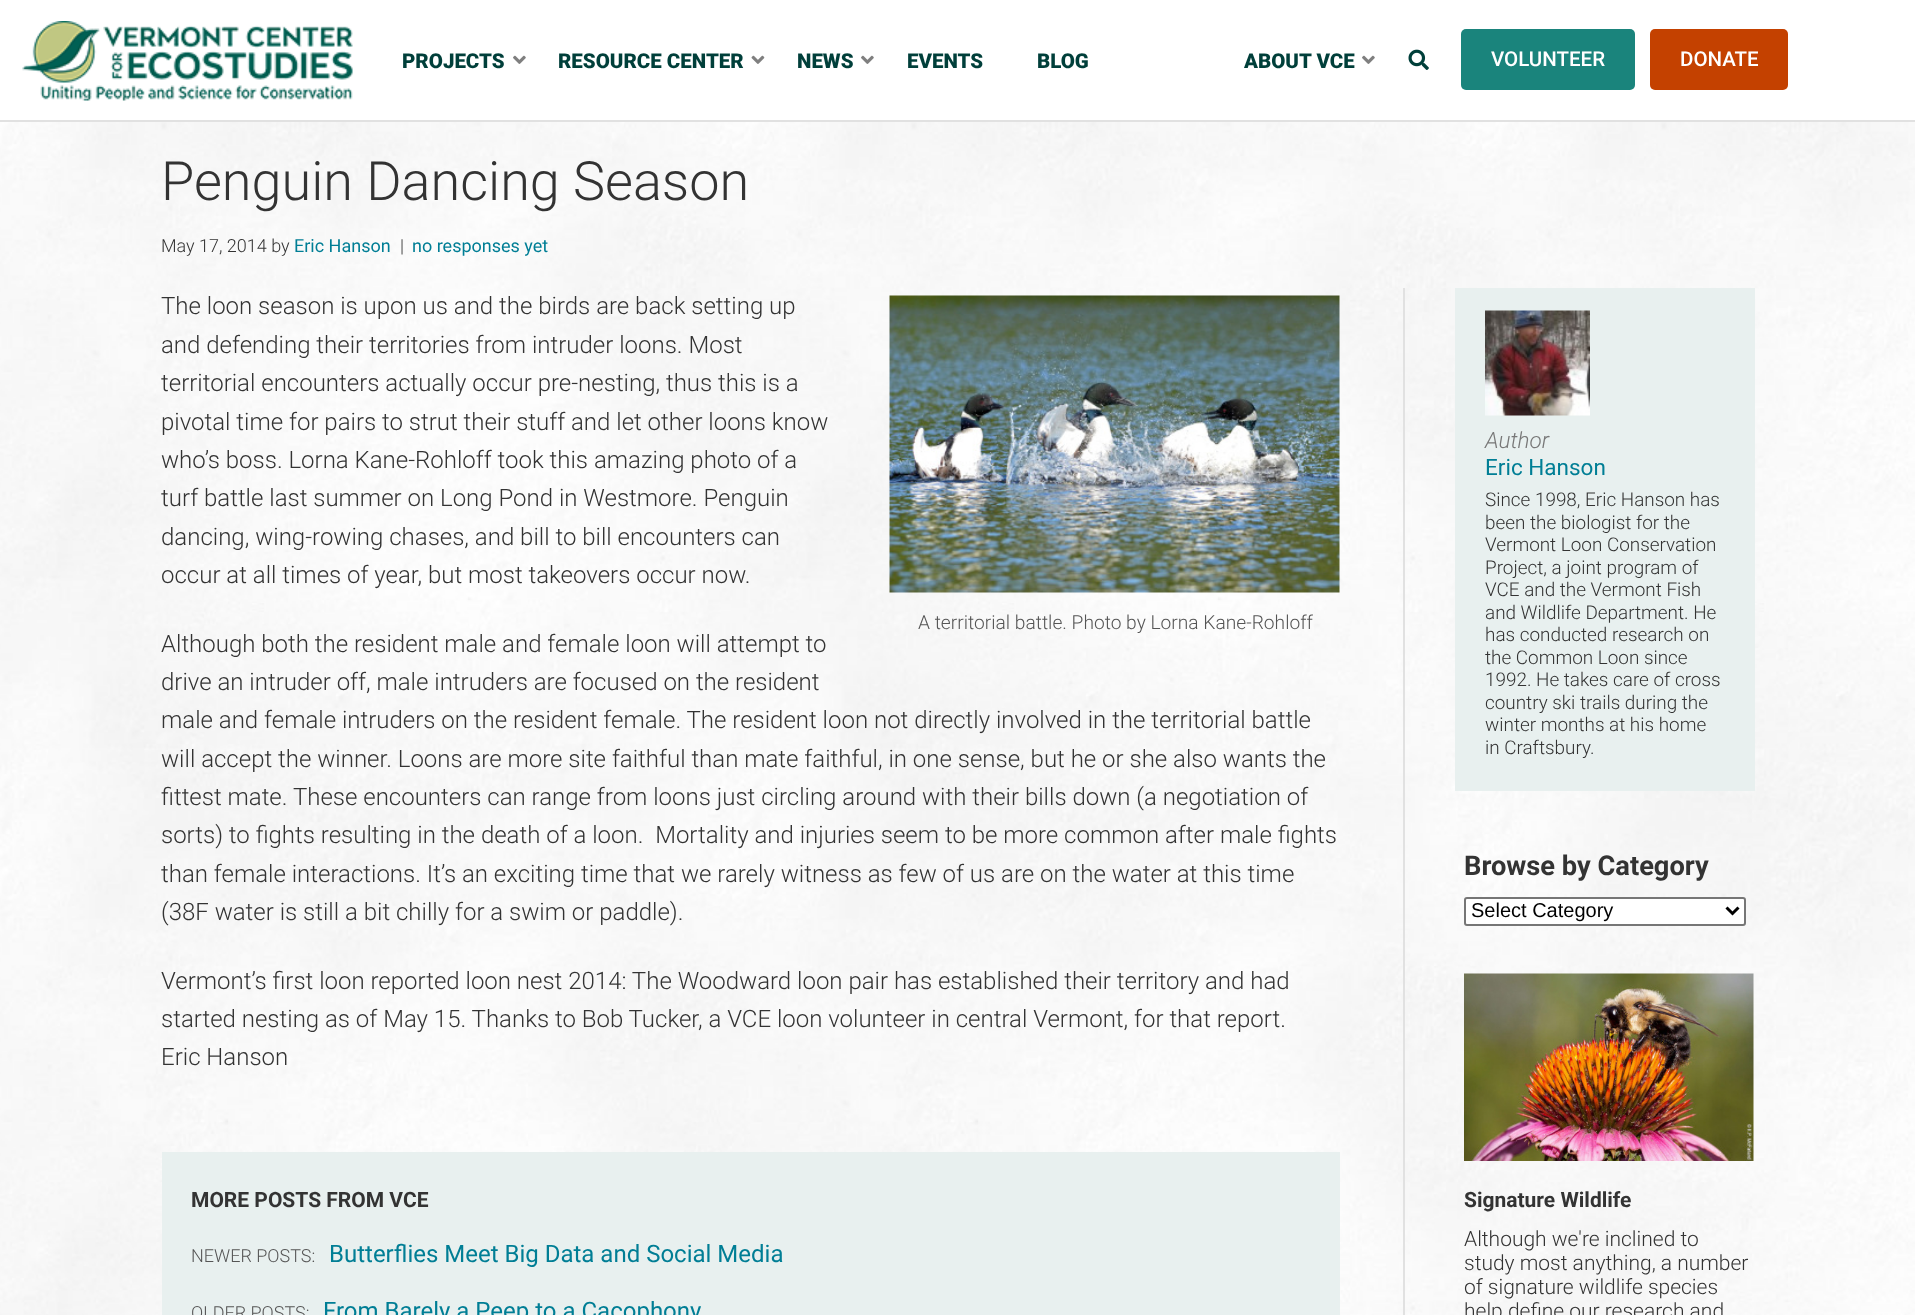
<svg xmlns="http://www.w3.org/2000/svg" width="1915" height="1315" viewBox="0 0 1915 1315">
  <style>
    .t1 { font: 900 20.5px Roboto; fill: #003f3a; }
    .t2 { font: 500 20.5px Roboto; fill: #fff; }
    .t3 { font: 300 54px Roboto; fill: #333; }
    .t4 { font: 300 18px Roboto; fill: #333; }
    .t5 { font: 18px Roboto; fill: #007e95; }
    .t6 { font: 300 24px Roboto; fill: #333; }
    .t7 { font: 300 19.2px Roboto; fill: #555; }
    .t8 { font: bold 21px Roboto; fill: #333; }
    .t9 { font: 300 18px Roboto; fill: #555; }
    .t10 { font: 24px Roboto; fill: #007e95; }
    .t11 { font: italic 300 22.5px Roboto; fill: #777; }
    .t12 { font: 22.5px Roboto; fill: #007e95; }
    .t13 { font: 300 18.9px Roboto; fill: #333; }
    .t14 { font: bold 27.25px Roboto; fill: #333; }
    .t15 { font: 20px Liberation Sans; fill: #000; }
    .t16 { font: 300 21px Roboto; fill: #333; }
  </style>
  <rect width="100%" height="100%" fill="#fff"/>
  <image x="0" y="122" width="1915" height="1193" href="images/1.png"/>
  <rect x="0" y="120" width="1915" height="2" fill="#e1e1e1"/>
  <image x="22" y="21" width="331" height="80" href="images/2.png"/>
  <text x="402" y="68" class="t1">PROJECTS</text>
  <image x="513" y="55" width="13" height="9" href="images/3.png"/>
  <text x="558" y="68" class="t1">RESOURCE CENTER</text>
  <image x="751" y="55" width="14" height="9" href="images/4.png"/>
  <text x="797" y="68" class="t1">NEWS</text>
  <image x="861" y="55" width="13" height="9" href="images/3.png"/>
  <text x="907" y="68" class="t1">EVENTS</text>
  <text x="1037" y="68" class="t1">BLOG</text>
  <text x="1244" y="68" class="t1">ABOUT VCE</text>
  <image x="1362" y="55" width="13" height="9" href="images/3.png"/>
  <image x="1408" y="49" width="21" height="21" href="images/5.png"/>
  <rect x="1461" y="29" width="174" height="61" rx="5" fill="#1a847c"/>
  <text x="1491" y="66" class="t2">VOLUNTEER</text>
  <rect x="1650" y="29" width="138" height="61" rx="5" fill="#c44100"/>
  <text x="1680" y="66" class="t2">DONATE</text>
  <text x="161" y="200" class="t3">Penguin Dancing Season</text>
  <text x="161" y="252" class="t4">May 17, 2014 by</text>
  <text x="294" y="252" class="t5">Eric Hanson</text>
  <text x="400" y="252" class="t4">|</text>
  <text x="412" y="252" class="t5">no responses yet</text>
  <text x="161" y="314" class="t6">The loon season is upon us and the birds are back setting up</text>
  <text x="161" y="353" class="t6">and defending their territories from intruder loons. Most</text>
  <text x="161" y="391" class="t6">territorial encounters actually occur pre-nesting, thus this is a</text>
  <text x="161" y="430" class="t6">pivotal time for pairs to strut their stuff and let other loons know</text>
  <text x="161" y="468" class="t6">who’s boss. Lorna Kane-Rohloff took this amazing photo of a</text>
  <text x="161" y="506" class="t6">turf battle last summer on Long Pond in Westmore. Penguin</text>
  <text x="161" y="545" class="t6">dancing, wing-rowing chases, and bill to bill encounters can</text>
  <text x="161" y="583" class="t6">occur at all times of year, but most takeovers occur now.</text>
  <image x="889" y="295" width="451" height="298" href="images/6.png"/>
  <text x="918" y="629" class="t7">A territorial battle. Photo by Lorna Kane-Rohloff</text>
  <text x="161" y="652" class="t6">Although both the resident male and female loon will attempt to</text>
  <text x="161" y="690" class="t6">drive an intruder off, male intruders are focused on the resident</text>
  <text x="161" y="728" class="t6">male and female intruders on the resident female. The resident loon not directly involved in the territorial battle</text>
  <text x="161" y="767" class="t6">will accept the winner. Loons are more site faithful than mate faithful, in one sense, but he or she also wants the</text>
  <text x="161" y="805" class="t6">fittest mate. These encounters can range from loons just circling around with their bills down (a negotiation of</text>
  <text x="161" y="843" class="t6" xml:space="preserve">sorts) to fights resulting in the death of a loon.  Mortality and injuries seem to be more common after male fights</text>
  <text x="161" y="882" class="t6">than female interactions. It’s an exciting time that we rarely witness as few of us are on the water at this time</text>
  <text x="161" y="920" class="t6">(38F water is still a bit chilly for a swim or paddle).</text>
  <text x="161" y="989" class="t6">Vermont’s first loon reported loon nest 2014: The Woodward loon pair has established their territory and had</text>
  <text x="161" y="1027" class="t6">started nesting as of May 15. Thanks to Bob Tucker, a VCE loon volunteer in central Vermont, for that report.</text>
  <text x="161" y="1065" class="t6">Eric Hanson</text>
  <rect x="162" y="1152" width="1178" height="163" fill="#e8f0ef"/>
  <text x="191" y="1207" class="t8">MORE POSTS FROM VCE</text>
  <text x="191" y="1262" class="t9">NEWER POSTS:</text>
  <text x="329" y="1262" class="t10">Butterflies Meet Big Data and Social Media</text>
  <text x="191" y="1319" class="t9">OLDER POSTS:</text>
  <text x="323" y="1319" class="t10">From Barely a Peep to a Cacophony</text>
  <rect x="1403" y="288" width="2" height="1027" fill="#e1e1e1"/>
  <rect x="1455" y="288" width="300" height="503" fill="#e8f0ef"/>
  <image x="1485" y="310" width="105" height="106" href="images/7.png"/>
  <text x="1485" y="448" class="t11">Author</text>
  <text x="1485" y="475" class="t12">Eric Hanson</text>
  <text x="1485" y="506" class="t13">Since 1998, Eric Hanson has</text>
  <text x="1485" y="529" class="t13">been the biologist for the</text>
  <text x="1485" y="551" class="t13">Vermont Loon Conservation</text>
  <text x="1485" y="574" class="t13">Project, a joint program of</text>
  <text x="1485" y="596" class="t13">VCE and the Vermont Fish</text>
  <text x="1485" y="619" class="t13">and Wildlife Department. He</text>
  <text x="1485" y="641" class="t13">has conducted research on</text>
  <text x="1485" y="664" class="t13">the Common Loon since</text>
  <text x="1485" y="686" class="t13">1992. He takes care of cross</text>
  <text x="1485" y="709" class="t13">country ski trails during the</text>
  <text x="1485" y="731" class="t13">winter months at his home</text>
  <text x="1485" y="754" class="t13">in Craftsbury.</text>
  <text x="1464" y="875" class="t14">Browse by Category</text>
  <rect x="1465" y="898" width="280" height="27" rx="2" fill="#fff" stroke="#767676" stroke-width="2"/>
  <path d="M1726.5 907.5L1732.5 913.5L1738.5 907.5" fill="none" stroke="#000" stroke-width="3"/>
  <text x="1471" y="917" class="t15">Select Category</text>
  <image x="1464" y="973" width="290" height="188" href="images/8.png"/>
  <text x="1464" y="1207" class="t8">Signature Wildlife</text>
  <text x="1464" y="1246" class="t16">Although we're inclined to</text>
  <text x="1464" y="1270" class="t16">study most anything, a number</text>
  <text x="1464" y="1294" class="t16">of signature wildlife species</text>
  <text x="1464" y="1318" class="t16">help define our research and</text>
</svg>
